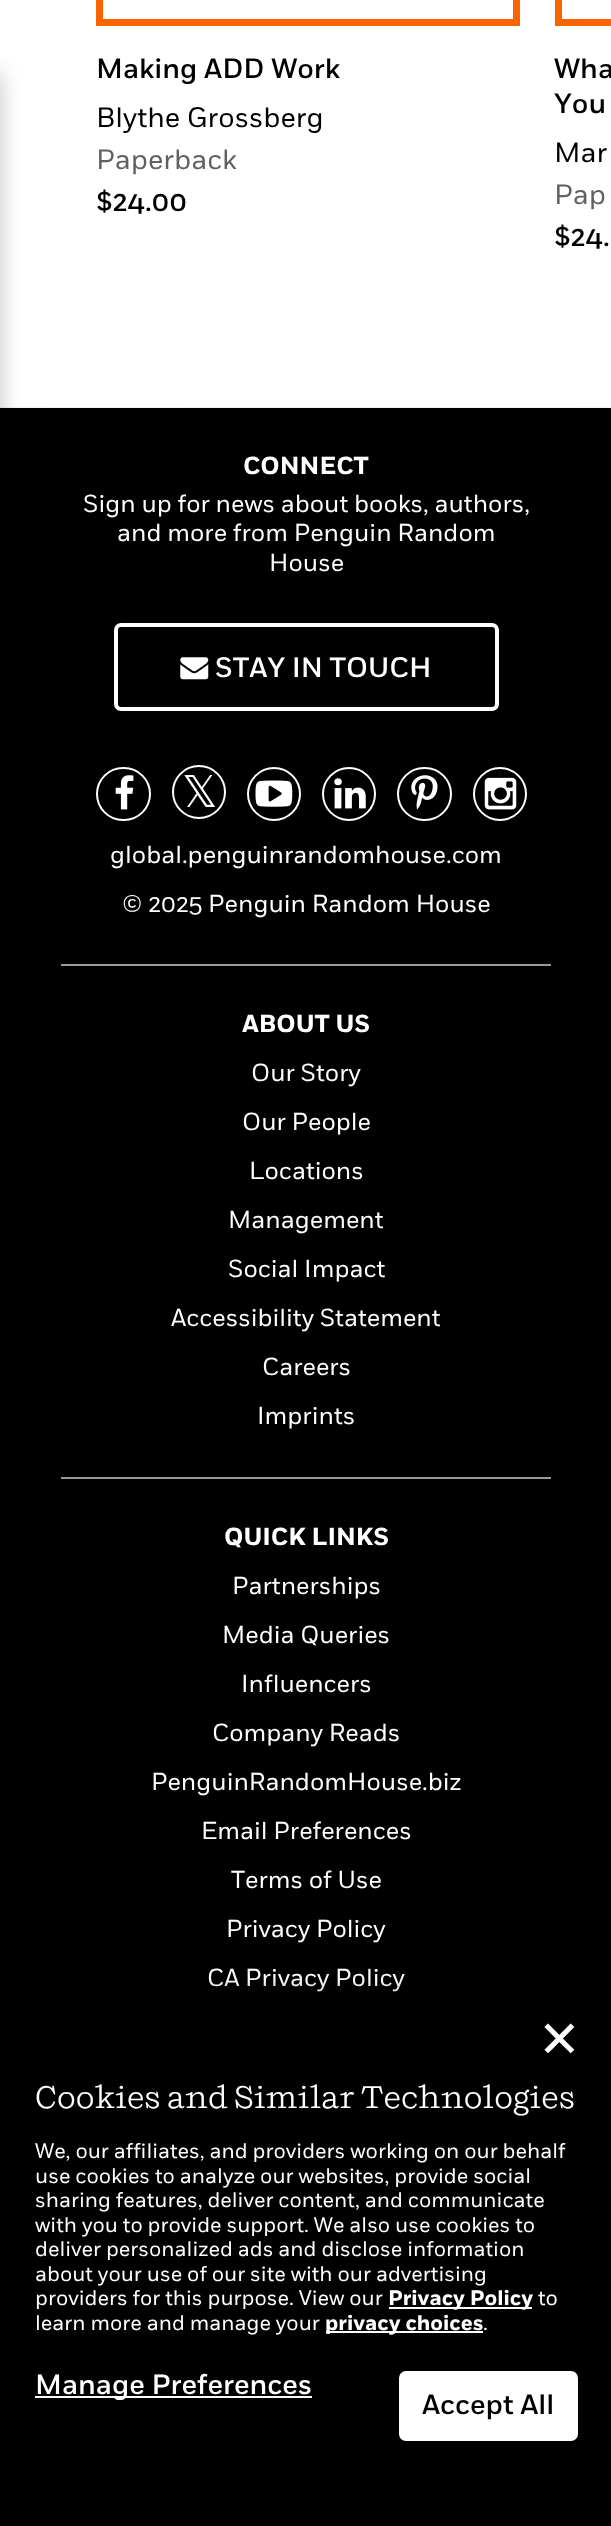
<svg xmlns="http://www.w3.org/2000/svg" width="611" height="2526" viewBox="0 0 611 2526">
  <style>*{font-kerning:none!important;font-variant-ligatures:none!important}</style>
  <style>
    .t1 { font: 500 28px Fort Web; fill: #000; }
    .t2 { font: 28px Fort Web; fill: #000; }
    .t3 { font: 28px Fort Web; fill: #606060; }
    .t4 { font: bold 24.5px Fort Web; fill: #fff; }
    .t5 { font: 24.5px Fort Web; fill: #fff; }
    .t6 { font: 500 28px Fort Web; fill: #fff; }
    .t7 { font: 44px DejaVu Sans; fill: #fff; }
    .t8 { font: 51px DejaVu Sans; fill: #fff; }
    .t9 { font: 31.5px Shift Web; fill: #fff; }
    .t10 { font: 21px Fort Web; fill: #fff; }
    .t11 { font: bold 21px Fort Web; fill: #fff; }
  </style>
  <rect width="100%" height="100%" fill="#fff"/>
  <image x="0" y="407" width="611" height="1" href="images/1.png"/>
  <rect x="0" y="408" width="611" height="1587" fill="#000"/>
  <rect x="-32" y="74" width="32" height="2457" fill="#0000003d" filter="blur(10.5px)"/>
  <rect x="99.5" y="-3.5" width="417" height="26" fill="none" stroke="#fa6400" stroke-width="7"/>
  <text x="96" y="78" class="t1">Making ADD Work</text>
  <text x="96" y="127" class="t2">Blythe Grossberg</text>
  <text x="96" y="169" class="t3">Paperback</text>
  <text x="96" y="211" class="t1">$24.00</text>
  <rect x="558.5" y="-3.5" width="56" height="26" fill="none" stroke="#fa6400" stroke-width="7"/>
  <text x="554" y="78" class="t1">Wha</text>
  <text x="554" y="113" class="t1">You</text>
  <text x="554" y="162" class="t2">Mar</text>
  <text x="554" y="204" class="t3">Pap</text>
  <text x="554" y="246" class="t1">$24.</text>
  <text x="243" y="474" class="t4">CONNECT</text>
  <text x="83" y="512" class="t5">Sign up for news about books, authors,</text>
  <text x="117" y="541" class="t5">and more from Penguin Random</text>
  <text x="269" y="571" class="t5">House</text>
  <rect x="116" y="625" width="381" height="84" rx="5" fill="none" stroke="#fff" stroke-width="4"/>
  <image x="180" y="657" width="29" height="23" href="images/2.png"/>
  <text x="215" y="677" class="t6">STAY IN TOUCH</text>
  <rect x="97" y="768" width="53" height="52" rx="26" fill="none" stroke="#fff" stroke-width="2"/>
  <image x="115" y="775" width="19" height="35" href="images/3.png"/>
  <circle cx="199" cy="792" r="26" fill="none" stroke="#fff" stroke-width="2"/>
  <text x="182" y="807" class="t7">𝕏</text>
  <circle cx="274" cy="794" r="26" fill="none" stroke="#fff" stroke-width="2"/>
  <image x="255" y="780" width="38" height="27" href="images/4.png"/>
  <circle cx="349" cy="794" r="26" fill="none" stroke="#fff" stroke-width="2"/>
  <image x="334" y="778" width="32" height="31" href="images/5.png"/>
  <rect x="398" y="768" width="53" height="52" rx="26" fill="none" stroke="#fff" stroke-width="2"/>
  <image x="411" y="775" width="27" height="35" href="images/6.png"/>
  <circle cx="500" cy="794" r="26" fill="none" stroke="#fff" stroke-width="2"/>
  <image x="484" y="777" width="33" height="33" href="images/7.png"/>
  <text x="110" y="863" class="t5">global.penguinrandomhouse.com</text>
  <text x="122" y="912" class="t5">© 2025 Penguin Random House</text>
  <rect x="61" y="964" width="490" height="2" fill="#999"/>
  <text x="242" y="1032" class="t4">ABOUT US</text>
  <text x="251" y="1081" class="t5">Our Story</text>
  <text x="242" y="1130" class="t5">Our People</text>
  <text x="249" y="1179" class="t5">Locations</text>
  <text x="228" y="1228" class="t5">Management</text>
  <text x="228" y="1277" class="t5">Social Impact</text>
  <text x="171" y="1326" class="t5">Accessibility Statement</text>
  <text x="262" y="1375" class="t5">Careers</text>
  <text x="257" y="1424" class="t5">Imprints</text>
  <rect x="61" y="1477" width="490" height="2" fill="#999"/>
  <text x="224" y="1545" class="t4">QUICK LINKS</text>
  <text x="232" y="1594" class="t5">Partnerships</text>
  <text x="222" y="1643" class="t5">Media Queries</text>
  <text x="241" y="1692" class="t5">Influencers</text>
  <text x="212" y="1741" class="t5">Company Reads</text>
  <text x="151" y="1790" class="t5">PenguinRandomHouse.biz</text>
  <text x="201" y="1839" class="t5">Email Preferences</text>
  <text x="231" y="1888" class="t5">Terms of Use</text>
  <text x="226" y="1937" class="t5">Privacy Policy</text>
  <text x="207" y="1986" class="t5">CA Privacy Policy</text>
  <rect x="0" y="1985" width="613" height="532" fill="#00000029" filter="blur(5px)"/>
  <rect x="0" y="1995" width="611" height="531" fill="#000"/>
  <text x="538" y="2057" class="t8">✕</text>
  <text x="35" y="2108" class="t9">Cookies and Similar Technologies</text>
  <text x="35" y="2158" class="t10">We, our affiliates, and providers working on our behalf</text>
  <text x="35" y="2183" class="t10">use cookies to analyze our websites, provide social</text>
  <text x="35" y="2207" class="t10">sharing features, deliver content, and communicate</text>
  <text x="35" y="2232" class="t10">with you to provide support. We also use cookies to</text>
  <text x="35" y="2256" class="t10">deliver personalized ads and disclose information</text>
  <text x="35" y="2281" class="t10">about your use of our site with our advertising</text>
  <text x="35" y="2305" class="t10">providers for this purpose. View our</text>
  <rect x="389" y="2307" width="143" height="2" fill="#fff"/>
  <text x="388" y="2305" class="t11">Privacy Policy</text>
  <text x="538" y="2305" class="t10">to</text>
  <text x="35" y="2330" class="t10">learn more and manage your</text>
  <rect x="326" y="2331" width="157" height="2" fill="#fff"/>
  <text x="325" y="2330" class="t11">privacy choices</text>
  <text x="483" y="2330" class="t10">.</text>
  <rect x="35" y="2396" width="277" height="2" fill="#fff"/>
  <text x="35" y="2394" class="t6">Manage Preferences</text>
  <rect x="401" y="2373" width="175" height="66" rx="5" fill="#fff" stroke="#fff" stroke-width="4"/>
  <text x="422" y="2414" class="t1">Accept All</text>
</svg>
